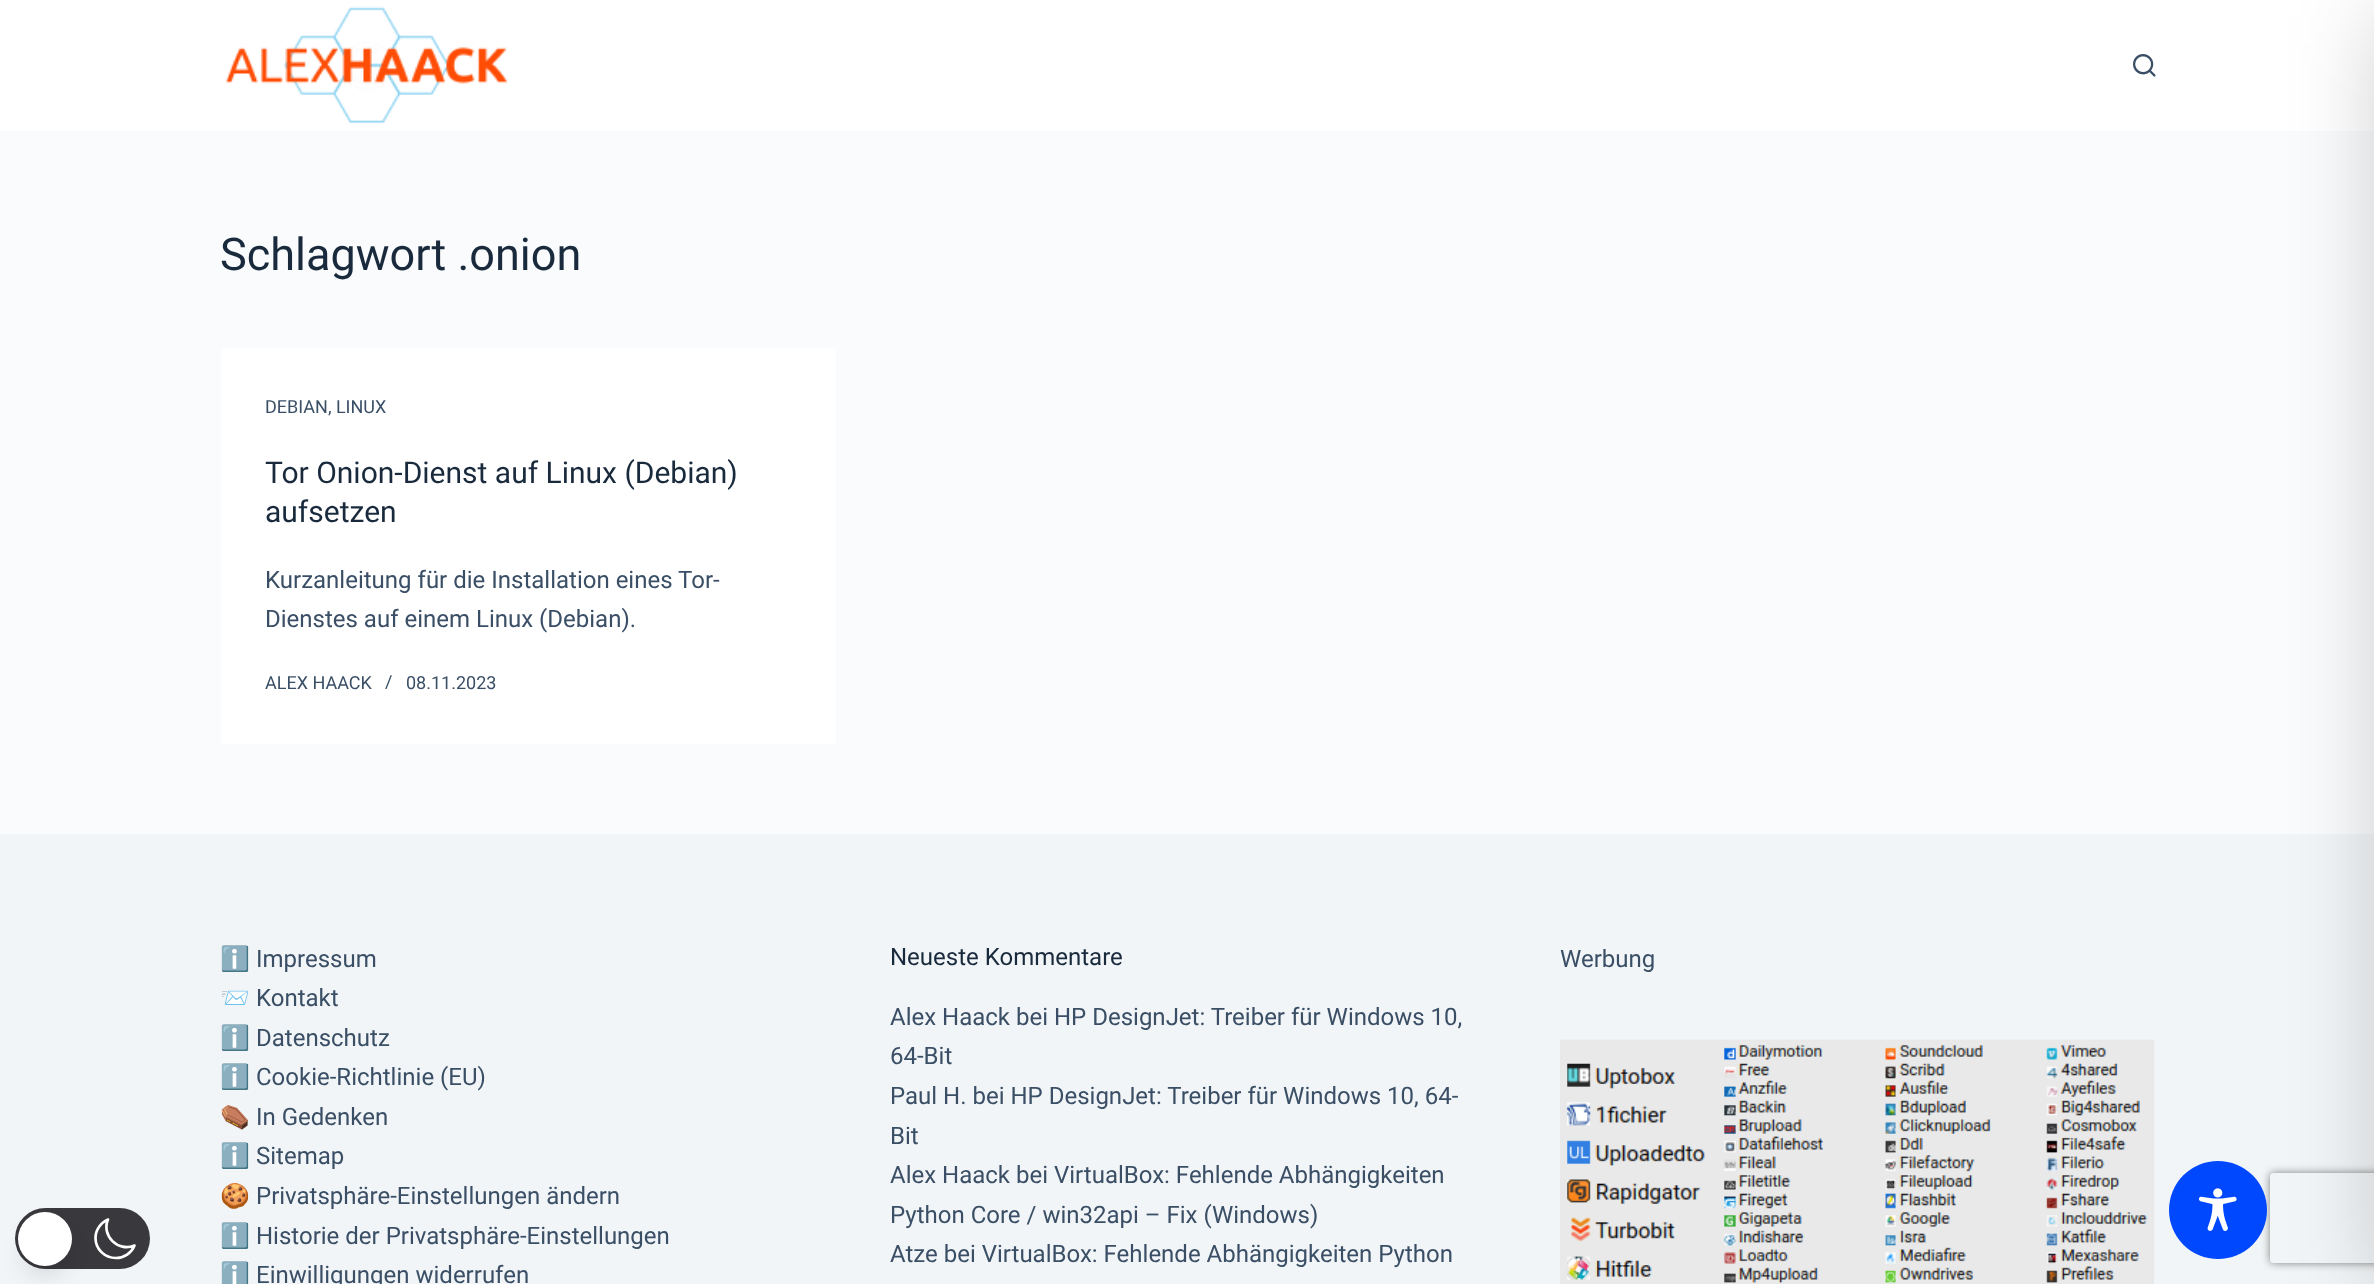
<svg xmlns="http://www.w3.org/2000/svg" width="2374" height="1284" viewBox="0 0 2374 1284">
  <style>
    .t1 { font: 45px Roboto; fill: #192a3d; }
    .t2 { font: 18px Roboto; fill: #3a4f66; }
    .t3 { font: 30px Roboto; fill: #192a3d; }
    .t4 { font: 24px Roboto; fill: #3a4f66; }
    .t5 { font: 24px Noto Color Emoji; fill: #3a4f66; }
    .t6 { font: 24px Roboto; fill: #192a3d; }
  </style>
  <defs>
    <clipPath id="clip1"><path d="M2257 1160H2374V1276H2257ZM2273 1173H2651C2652.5 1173 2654 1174.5 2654 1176V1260C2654 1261.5 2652.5 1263 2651 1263H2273C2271.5 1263 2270 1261.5 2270 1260V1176C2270 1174.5 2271.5 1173 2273 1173Z" clip-rule="evenodd"/></clipPath>
  </defs>
  <rect width="100%" height="100%" fill="#fafbfc"/>
  <rect x="0" y="0" width="2374" height="131" fill="#fff"/>
  <image x="225" y="6" width="283" height="118" href="images/1.png"/>
  <image x="2133" y="54" width="23" height="23" href="images/2.png"/>
  <text x="220" y="270" class="t1">Schlagwort .onion</text>
  <rect x="221" y="348" width="615" height="396" fill="#fff"/>
  <text x="265" y="413" class="t2">DEBIAN, LINUX</text>
  <text x="265" y="483" class="t3">Tor Onion-Dienst auf Linux (Debian)</text>
  <text x="265" y="522" class="t3">aufsetzen</text>
  <text x="265" y="588" class="t4">Kurzanleitung für die Installation eines Tor-</text>
  <text x="265" y="627" class="t4">Dienstes auf einem Linux (Debian).</text>
  <text x="265" y="689" class="t2">ALEX HAACK</text>
  <text x="385" y="688" class="t2">/</text>
  <text x="406" y="689" class="t2">08.11.2023</text>
  <rect x="0" y="834" width="2374" height="450" fill="#f2f5f7"/>
  <text x="220" y="967" class="t5">ℹ️</text>
  <text x="256" y="967" class="t4">Impressum</text>
  <text x="220" y="1006" class="t5">📨</text>
  <text x="256" y="1006" class="t4">Kontakt</text>
  <text x="220" y="1046" class="t5">ℹ️</text>
  <text x="256" y="1046" class="t4">Datenschutz</text>
  <text x="220" y="1085" class="t5">ℹ️</text>
  <text x="256" y="1085" class="t4">Cookie-Richtlinie (EU)</text>
  <text x="220" y="1125" class="t5">⚰️</text>
  <text x="256" y="1125" class="t4">In Gedenken</text>
  <text x="220" y="1164" class="t5">ℹ️</text>
  <text x="256" y="1164" class="t4">Sitemap</text>
  <text x="220" y="1204" class="t5">🍪</text>
  <text x="256" y="1204" class="t4">Privatsphäre-Einstellungen ändern</text>
  <text x="220" y="1244" class="t5">ℹ️</text>
  <text x="256" y="1244" class="t4">Historie der Privatsphäre-Einstellungen</text>
  <text x="220" y="1283" class="t5">ℹ️</text>
  <text x="256" y="1283" class="t4">Einwilligungen widerrufen</text>
  <text x="890" y="965" class="t6">Neueste Kommentare</text>
  <text x="890" y="1025" class="t4">Alex Haack bei HP DesignJet: Treiber für Windows 10,</text>
  <text x="890" y="1064" class="t4">64-Bit</text>
  <text x="890" y="1104" class="t4">Paul H. bei HP DesignJet: Treiber für Windows 10, 64-</text>
  <text x="890" y="1144" class="t4">Bit</text>
  <text x="890" y="1183" class="t4">Alex Haack bei VirtualBox: Fehlende Abhängigkeiten</text>
  <text x="890" y="1223" class="t4">Python Core / win32api – Fix (Windows)</text>
  <text x="890" y="1262" class="t4">Atze bei VirtualBox: Fehlende Abhängigkeiten Python</text>
  <text x="1560" y="967" class="t4">Werbung</text>
  <image x="1560" y="1039" width="594" height="245" href="images/3.png"/>
  <g clip-path="url(#clip1)">
    <rect x="2270" y="1173" width="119" height="90" rx="3" fill="#808080" filter="blur(4px)"/>
  </g>
  <circle cx="2218" cy="1210" r="49" fill="#0048fe"/>
  <rect x="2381" y="15" width="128" height="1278" fill="#00000033" filter="blur(45px)"/>
  <rect x="15" y="1208" width="135" height="61" rx="30.5" fill="#39393d"/>
  <path d="M134.5 1245.5C118 1252.5 101 1235.5 108 1219.5C101 1222.5 95.5 1229.5 95.5 1238C95.5 1249 104.5 1258 116 1258C124 1258 131.5 1253 134.5 1245.5Z" fill="none" stroke="#fff" stroke-width="2.7" stroke-linecap="round" stroke-linejoin="round"/>
  <rect x="23" y="1232" width="45" height="45" rx="22.5" fill="#0000001a" filter="blur(11px)"/>
  <circle cx="45" cy="1239" r="27" fill="#fff"/>
  <image x="2198" y="1188" width="39" height="43" href="images/4.png"/>
</svg>
